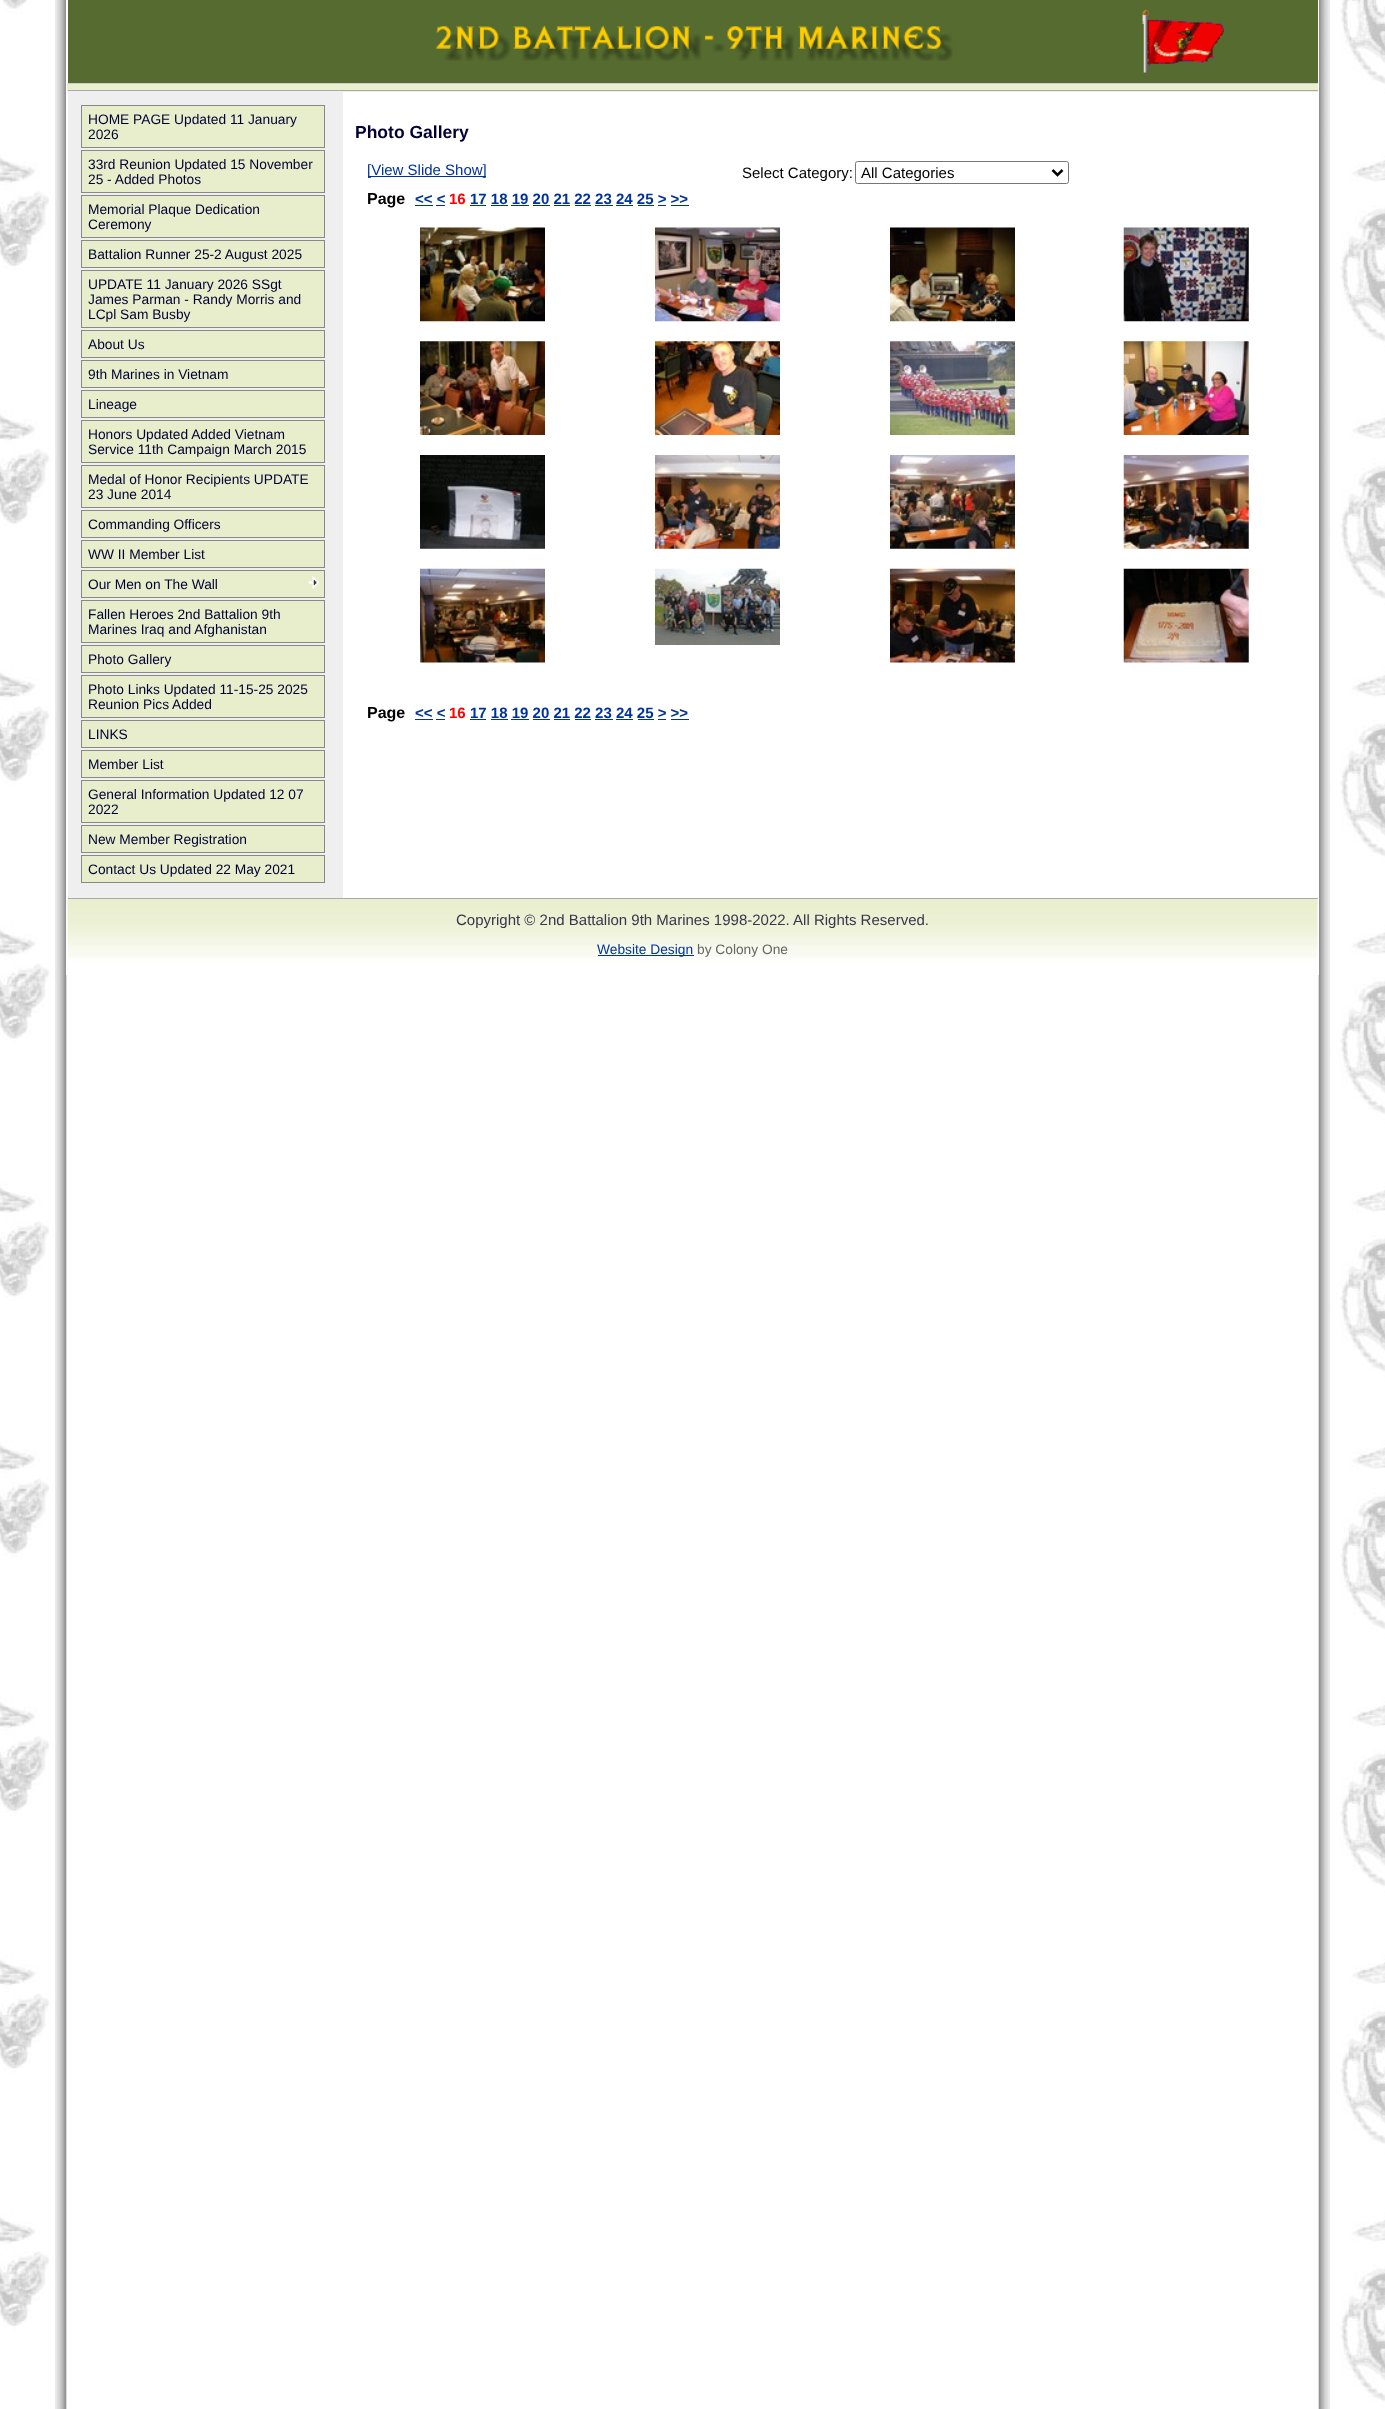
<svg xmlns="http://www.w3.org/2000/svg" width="1385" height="2409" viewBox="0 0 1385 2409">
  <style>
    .t1 { font: 13.75px Liberation Sans; fill: #003; }
    .t2 { font: bold 17.5px Liberation Sans; fill: #003; }
    .t3 { font: 15px Liberation Sans; fill: #039; }
    .t4 { font: 15px Liberation Sans; fill: #000; }
    .t5 { font: bold 16px Liberation Sans; fill: #000; }
    .t6 { font: bold 15px Liberation Sans; fill: #039; }
    .t7 { font: bold 15px Liberation Sans; fill: #f00; }
    .t8 { font: 15px Liberation Sans; fill: #37364b; }
    .t9 { font: 13.75px Liberation Sans; fill: #039; }
    .t10 { font: 13.75px Liberation Sans; fill: #666; }
  </style>
  <rect width="100%" height="100%" fill="#fff"/>
  <image x="0" y="0" width="1385" height="2409" href="images/1.png"/>
  <rect x="66" y="0" width="1253" height="975" fill="#fff"/>
  <rect x="68" y="0" width="1250" height="83" fill="#556b2f"/>
  <image x="435" y="25" width="518" height="36" href="images/2.png"/>
  <image x="1142" y="10" width="82" height="63" href="images/3.png"/>
  <rect x="67" y="83" width="1251" height="9" fill="#eaefcf"/>
  <rect x="68" y="83" width="1250" height="1" fill="#ccc"/>
  <rect x="68" y="90" width="1250" height="1" fill="#aaa"/>
  <rect x="68" y="91" width="275" height="807" fill="#efefef"/>
  <rect x="81.5" y="105.5" width="243" height="42" fill="#e8eecc" stroke="#888"/>
  <text x="88" y="124" class="t1">HOME PAGE Updated 11 January</text>
  <text x="88" y="139" class="t1">2026</text>
  <rect x="81.5" y="150.5" width="243" height="42" fill="#e8eecc" stroke="#888"/>
  <text x="88" y="169" class="t1">33rd Reunion Updated 15 November</text>
  <text x="88" y="184" class="t1">25 - Added Photos</text>
  <rect x="81.5" y="195.5" width="243" height="42" fill="#e8eecc" stroke="#888"/>
  <text x="88" y="214" class="t1">Memorial Plaque Dedication</text>
  <text x="88" y="229" class="t1">Ceremony</text>
  <rect x="81.5" y="240.5" width="243" height="27" fill="#e8eecc" stroke="#888"/>
  <text x="88" y="259" class="t1">Battalion Runner 25-2 August 2025</text>
  <rect x="81.5" y="270.5" width="243" height="57" fill="#e8eecc" stroke="#888"/>
  <text x="88" y="289" class="t1">UPDATE 11 January 2026 SSgt</text>
  <text x="88" y="304" class="t1">James Parman - Randy Morris and</text>
  <text x="88" y="319" class="t1">LCpl Sam Busby</text>
  <rect x="81.5" y="330.5" width="243" height="27" fill="#e8eecc" stroke="#888"/>
  <text x="88" y="349" class="t1">About Us</text>
  <rect x="81.5" y="360.5" width="243" height="27" fill="#e8eecc" stroke="#888"/>
  <text x="88" y="379" class="t1">9th Marines in Vietnam</text>
  <rect x="81.5" y="390.5" width="243" height="27" fill="#e8eecc" stroke="#888"/>
  <text x="88" y="409" class="t1">Lineage</text>
  <rect x="81.5" y="420.5" width="243" height="42" fill="#e8eecc" stroke="#888"/>
  <text x="88" y="439" class="t1">Honors Updated Added Vietnam</text>
  <text x="88" y="454" class="t1">Service 11th Campaign March 2015</text>
  <rect x="81.5" y="465.5" width="243" height="42" fill="#e8eecc" stroke="#888"/>
  <text x="88" y="484" class="t1">Medal of Honor Recipients UPDATE</text>
  <text x="88" y="499" class="t1">23 June 2014</text>
  <rect x="81.5" y="510.5" width="243" height="27" fill="#e8eecc" stroke="#888"/>
  <text x="88" y="529" class="t1">Commanding Officers</text>
  <rect x="81.5" y="540.5" width="243" height="27" fill="#e8eecc" stroke="#888"/>
  <text x="88" y="559" class="t1">WW II Member List</text>
  <rect x="82" y="571" width="242" height="26" fill="#e8eecc"/>
  <image x="308" y="576" width="11" height="13" href="images/4.png"/>
  <rect x="81.5" y="570.5" width="243" height="27" fill="none" stroke="#888"/>
  <text x="88" y="589" class="t1">Our Men on The Wall</text>
  <rect x="81.5" y="600.5" width="243" height="42" fill="#e8eecc" stroke="#888"/>
  <text x="88" y="619" class="t1">Fallen Heroes 2nd Battalion 9th</text>
  <text x="88" y="634" class="t1">Marines Iraq and Afghanistan</text>
  <rect x="81.5" y="645.5" width="243" height="27" fill="#e8eecc" stroke="#888"/>
  <text x="88" y="664" class="t1">Photo Gallery</text>
  <rect x="81.5" y="675.5" width="243" height="42" fill="#e8eecc" stroke="#888"/>
  <text x="88" y="694" class="t1">Photo Links Updated 11-15-25 2025</text>
  <text x="88" y="709" class="t1">Reunion Pics Added</text>
  <rect x="81.5" y="720.5" width="243" height="27" fill="#e8eecc" stroke="#888"/>
  <text x="88" y="739" class="t1">LINKS</text>
  <rect x="81.5" y="750.5" width="243" height="27" fill="#e8eecc" stroke="#888"/>
  <text x="88" y="769" class="t1">Member List</text>
  <rect x="81.5" y="780.5" width="243" height="42" fill="#e8eecc" stroke="#888"/>
  <text x="88" y="799" class="t1">General Information Updated 12 07</text>
  <text x="88" y="814" class="t1">2022</text>
  <rect x="81.5" y="825.5" width="243" height="27" fill="#e8eecc" stroke="#888"/>
  <text x="88" y="844" class="t1">New Member Registration</text>
  <rect x="81.5" y="855.5" width="243" height="27" fill="#e8eecc" stroke="#888"/>
  <text x="88" y="874" class="t1">Contact Us Updated 22 May 2021</text>
  <text x="355" y="138" class="t2">Photo Gallery</text>
  <rect x="368" y="176" width="118" height="1" fill="#039"/>
  <text x="367" y="175" class="t3">[View Slide Show]</text>
  <text x="742" y="178" class="t4">Select Category:</text>
  <rect x="855.5" y="161.5" width="213" height="22" rx="2" fill="none" stroke="#767676"/>
  <path d="M1052.5 170L1057.5 175L1062.5 170" fill="none" stroke="#000" stroke-width="2.5"/>
  <text x="861" y="178" class="t4">All Categories</text>
  <text x="367" y="204" class="t5">Page</text>
  <text x="415" y="204" class="t6">&lt;&lt; &lt;</text>
  <rect x="415" y="205" width="18" height="1" fill="#039"/>
  <rect x="436" y="205" width="9" height="1" fill="#039"/>
  <text x="449" y="204" class="t7">16</text>
  <text x="470" y="204" class="t6">17 18 19 20 21 22 23 24 25 &gt; &gt;&gt;</text>
  <rect x="470" y="205" width="16" height="1" fill="#039"/>
  <rect x="491" y="205" width="17" height="1" fill="#039"/>
  <rect x="511" y="205" width="18" height="1" fill="#039"/>
  <rect x="533" y="205" width="17" height="1" fill="#039"/>
  <rect x="554" y="205" width="16" height="1" fill="#039"/>
  <rect x="575" y="205" width="16" height="1" fill="#039"/>
  <rect x="595" y="205" width="18" height="1" fill="#039"/>
  <rect x="616" y="205" width="17" height="1" fill="#039"/>
  <rect x="638" y="205" width="16" height="1" fill="#039"/>
  <rect x="658" y="205" width="8" height="1" fill="#039"/>
  <rect x="671" y="205" width="18" height="1" fill="#039"/>
  <image x="420" y="227" width="125" height="95" href="images/5.png"/>
  <image x="655" y="227" width="125" height="95" href="images/6.png"/>
  <image x="890" y="227" width="125" height="95" href="images/7.png"/>
  <image x="1123" y="227" width="126" height="95" href="images/8.png"/>
  <image x="420" y="341" width="125" height="94" href="images/9.png"/>
  <image x="655" y="341" width="125" height="94" href="images/10.png"/>
  <image x="890" y="341" width="125" height="94" href="images/11.png"/>
  <image x="1123" y="341" width="126" height="94" href="images/12.png"/>
  <image x="420" y="455" width="125" height="94" href="images/13.png"/>
  <image x="655" y="455" width="125" height="94" href="images/14.png"/>
  <image x="890" y="455" width="125" height="94" href="images/15.png"/>
  <image x="1123" y="455" width="126" height="94" href="images/16.png"/>
  <image x="420" y="568" width="125" height="95" href="images/17.png"/>
  <image x="655" y="568" width="125" height="77" href="images/18.png"/>
  <image x="890" y="568" width="125" height="95" href="images/19.png"/>
  <image x="1123" y="568" width="126" height="95" href="images/20.png"/>
  <text x="367" y="718" class="t5">Page</text>
  <text x="415" y="718" class="t6">&lt;&lt; &lt;</text>
  <rect x="415" y="719" width="18" height="1" fill="#039"/>
  <rect x="436" y="719" width="9" height="1" fill="#039"/>
  <text x="449" y="718" class="t7">16</text>
  <text x="470" y="718" class="t6">17 18 19 20 21 22 23 24 25 &gt; &gt;&gt;</text>
  <rect x="470" y="719" width="16" height="1" fill="#039"/>
  <rect x="491" y="719" width="17" height="1" fill="#039"/>
  <rect x="511" y="719" width="18" height="1" fill="#039"/>
  <rect x="533" y="719" width="17" height="1" fill="#039"/>
  <rect x="554" y="719" width="16" height="1" fill="#039"/>
  <rect x="575" y="719" width="16" height="1" fill="#039"/>
  <rect x="595" y="719" width="18" height="1" fill="#039"/>
  <rect x="616" y="719" width="17" height="1" fill="#039"/>
  <rect x="638" y="719" width="16" height="1" fill="#039"/>
  <rect x="658" y="719" width="8" height="1" fill="#039"/>
  <rect x="671" y="719" width="18" height="1" fill="#039"/>
  <image x="67" y="898" width="1251" height="64" href="images/21.png"/>
  <rect x="68" y="898" width="1250" height="1" fill="#aaa"/>
  <text x="456" y="925" class="t8">Copyright © 2nd Battalion 9th Marines 1998-2022. All Rights Reserved.</text>
  <rect x="598" y="955" width="96" height="1" fill="#039"/>
  <text x="597" y="954" class="t9">Website Design</text>
  <text x="697" y="954" class="t10">by Colony One</text>
</svg>
